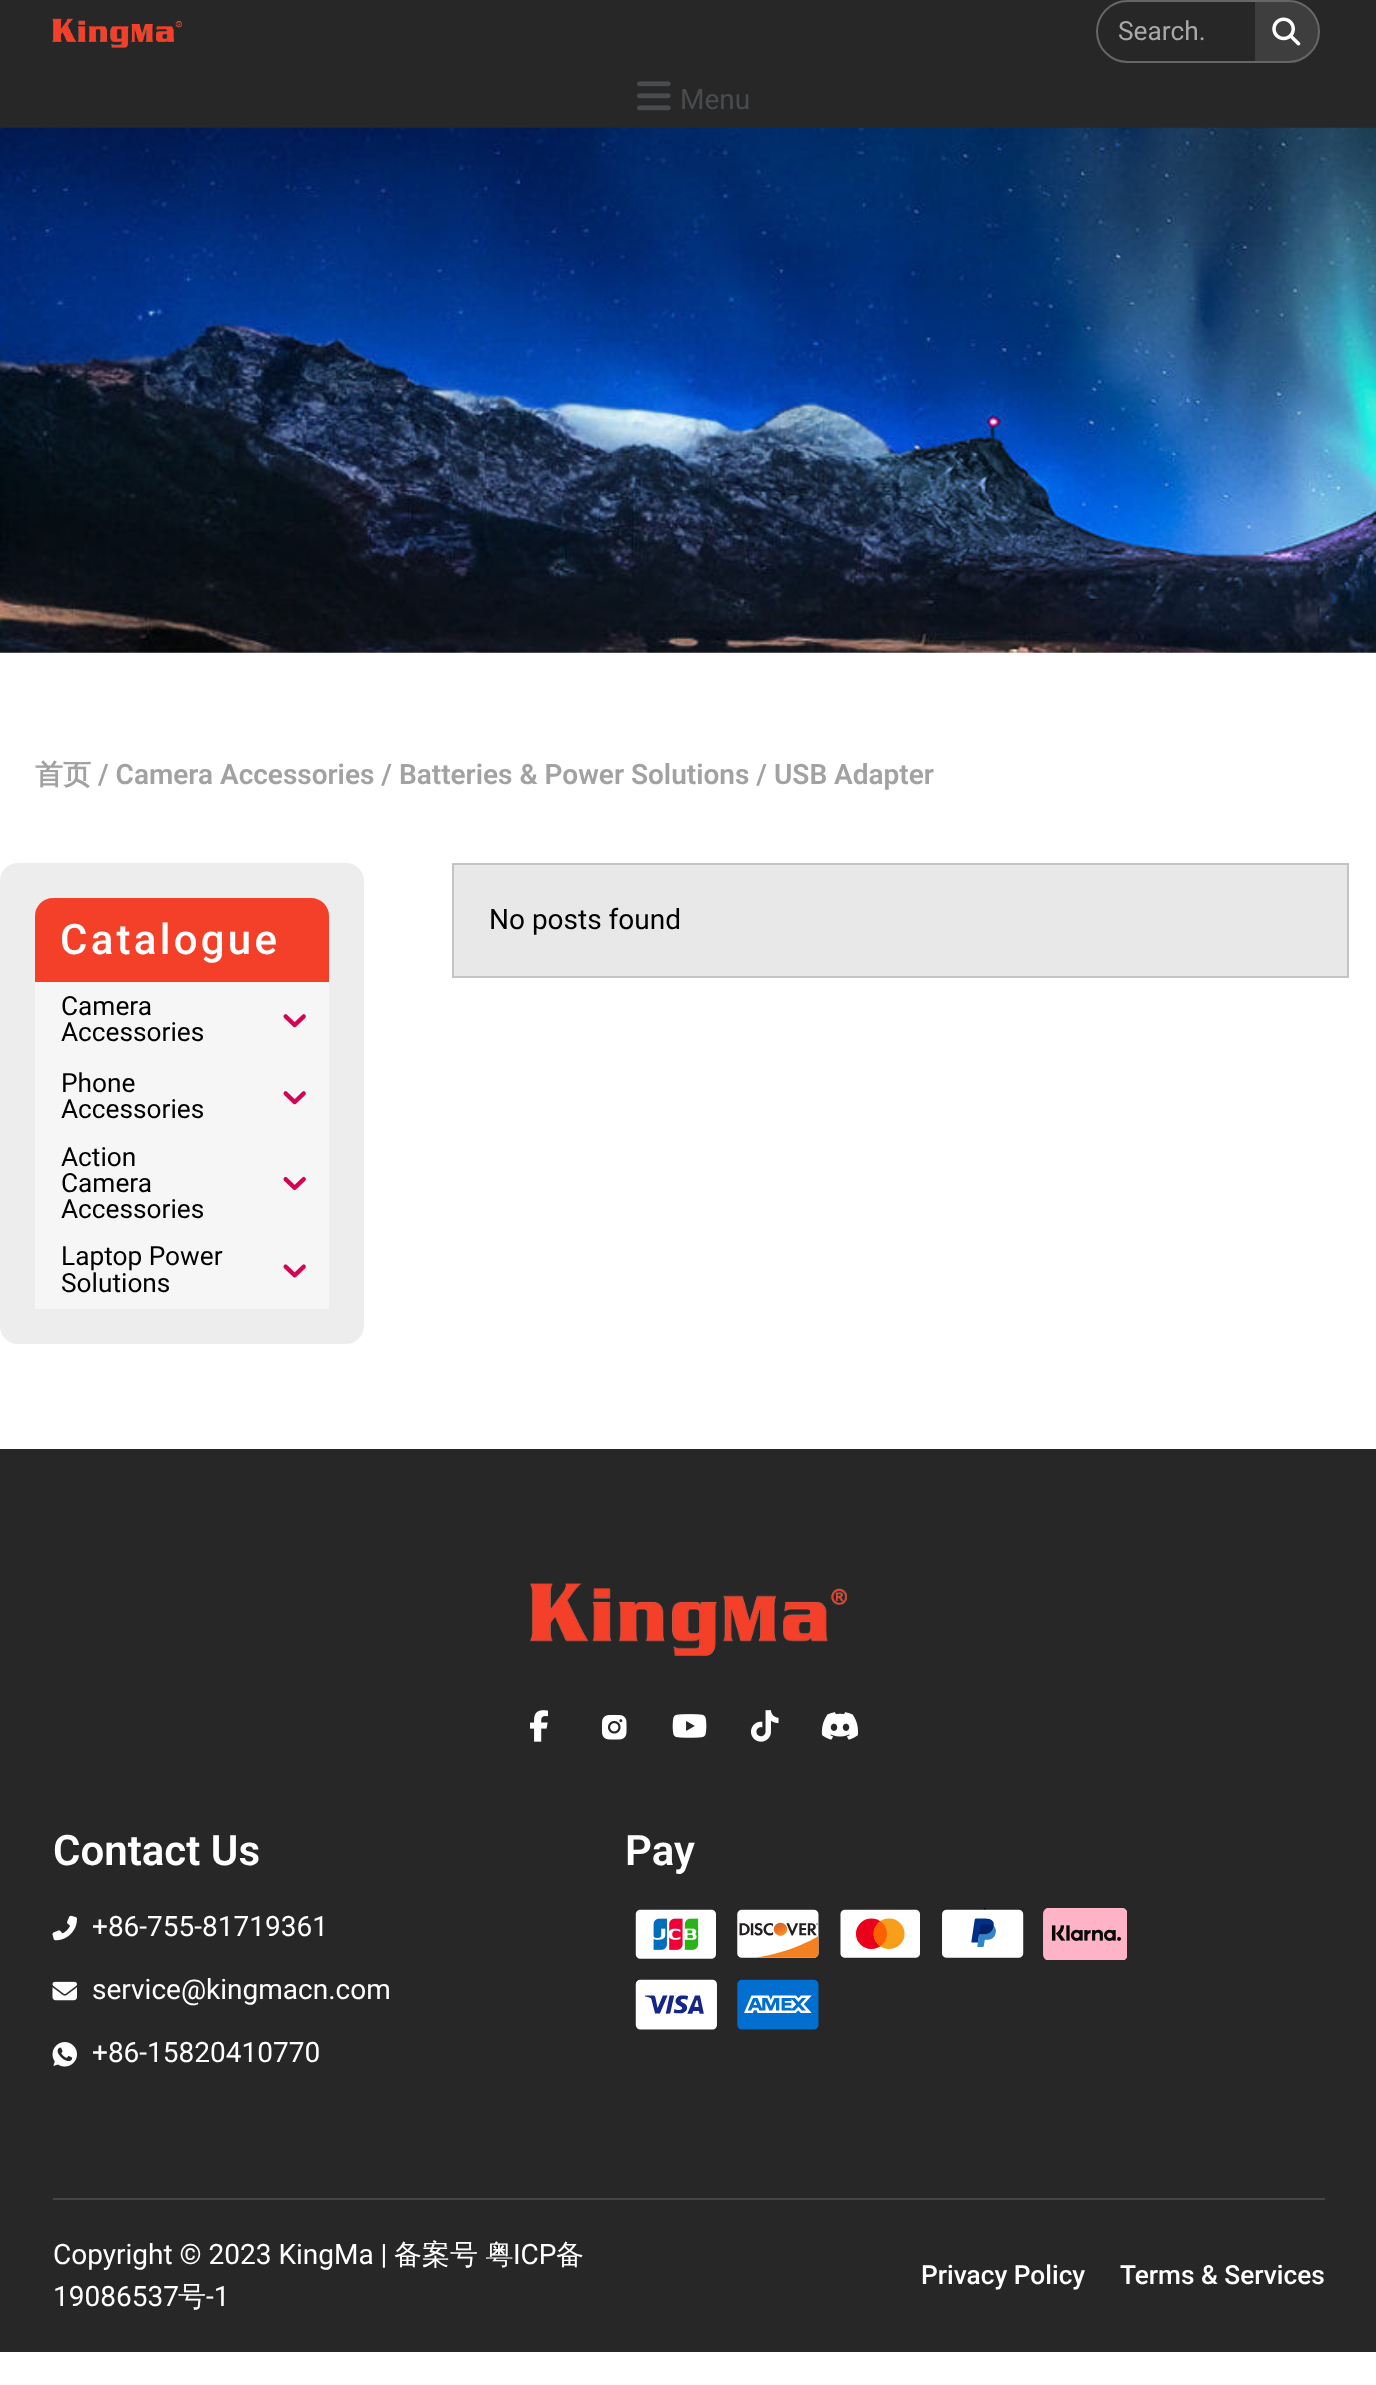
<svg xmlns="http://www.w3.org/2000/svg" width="1376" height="2385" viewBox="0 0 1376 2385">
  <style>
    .t1 { font: 26.25px Roboto; fill: #a9a9a9; }
    .t2 { font: 28px Roboto; fill: #494c4f; }
    .t3 { font: bold 28px WenQuanYi Zen Hei; fill: #a2a2a2; }
    .t4 { font: 600 28px Roboto; fill: #a2a2a2; }
    .t5 { font: 500 42px Roboto; letter-spacing: 3.25px; fill: #fff; }
    .t6 { font: 26.25px Roboto; fill: #000; }
    .t7 { font: 28px Roboto; fill: #000; }
    .t8 { font: 600 42px Roboto; fill: #fff; }
    .t9 { font: 28px Roboto; fill: #fff; }
    .t10 { font: 500 28px WenQuanYi Zen Hei; fill: #fff; }
    .t11 { font: 500 26.25px Roboto; fill: #fff; }
  </style>
  <rect width="100%" height="100%" fill="#fff"/>
  <rect x="0" y="0" width="1376" height="128" fill="#272727"/>
  <image x="52" y="18" width="130" height="30" href="images/1.png"/>
  <rect x="1097" y="1" width="222" height="61" rx="30.5" fill="none" stroke="#666" stroke-width="2"/>
  <text x="1118" y="40" class="t1">Search.</text>
  <path d="M1255 2H1288.5C1305 2 1318 15 1318 31.5C1318 48 1305 61 1288.5 61H1255Z" fill="#ffffff1c"/>
  <image x="1272" y="17" width="29" height="29" href="images/2.png"/>
  <image x="637" y="81" width="34" height="30" href="images/3.png"/>
  <text x="680" y="109" class="t2">Menu</text>
  <image x="0" y="127" width="1376" height="526" href="images/4.png"/>
  <text x="35" y="784" class="t3">首页</text>
  <text x="98" y="784" class="t4">/ Camera Accessories / Batteries &amp; Power Solutions / USB Adapter</text>
  <rect x="0" y="863" width="364" height="481" rx="18" fill="#ededed"/>
  <path d="M53 898H311C321 898 329 906 329 916V982H35V916C35 906 43 898 53 898Z" fill="#f54029"/>
  <text x="60" y="954" class="t5">Catalogue</text>
  <rect x="35" y="982" width="294" height="327" fill="#f6f6f6"/>
  <text x="61" y="1015" class="t6">Camera</text>
  <text x="61" y="1041" class="t6">Accessories</text>
  <image x="283" y="1014" width="23" height="14" href="images/5.png"/>
  <text x="61" y="1092" class="t6">Phone</text>
  <text x="61" y="1118" class="t6">Accessories</text>
  <image x="283" y="1091" width="23" height="14" href="images/5.png"/>
  <text x="61" y="1166" class="t6">Action</text>
  <text x="61" y="1192" class="t6">Camera</text>
  <text x="61" y="1218" class="t6">Accessories</text>
  <image x="283" y="1176" width="23" height="15" href="images/6.png"/>
  <text x="61" y="1265" class="t6">Laptop Power</text>
  <text x="61" y="1292" class="t6">Solutions</text>
  <image x="283" y="1264" width="23" height="14" href="images/7.png"/>
  <rect x="453" y="864" width="895" height="113" fill="#e8e8e8" stroke="#c4c4c4" stroke-width="2"/>
  <text x="489" y="929" class="t7">No posts found</text>
  <rect x="0" y="1449" width="1376" height="903" fill="#272727"/>
  <image x="530" y="1583" width="317" height="73" href="images/8.png"/>
  <image x="530" y="1710" width="18" height="32" href="images/9.png"/>
  <image x="601" y="1714" width="26" height="26" href="images/10.png"/>
  <image x="672" y="1714" width="35" height="24" href="images/11.png"/>
  <image x="751" y="1710" width="28" height="32" href="images/12.png"/>
  <image x="821" y="1712" width="37" height="28" href="images/13.png"/>
  <text x="53" y="1865" class="t8">Contact Us</text>
  <image x="52" y="1915" width="25" height="26" href="images/14.png"/>
  <text x="92" y="1936" class="t9">+86-755-81719361</text>
  <image x="52" y="1981" width="25" height="20" href="images/15.png"/>
  <text x="92" y="1999" class="t9">service@kingmacn.com</text>
  <image x="52" y="2042" width="25" height="25" href="images/16.png"/>
  <text x="92" y="2062" class="t9">+86-15820410770</text>
  <text x="625" y="1865" class="t8">Pay</text>
  <image x="635" y="1909" width="81" height="50" href="images/17.png"/>
  <image x="737" y="1909" width="82" height="49" href="images/18.png"/>
  <image x="840" y="1909" width="80" height="49" href="images/19.png"/>
  <image x="942" y="1908" width="82" height="50" href="images/20.png"/>
  <image x="1043" y="1908" width="84" height="52" href="images/21.png"/>
  <image x="635" y="1979" width="83" height="51" href="images/22.png"/>
  <image x="737" y="1979" width="82" height="51" href="images/23.png"/>
  <rect x="53" y="2198" width="1272" height="2" fill="#454545"/>
  <text x="53" y="2264" class="t9">Copyright © 2023 KingMa |</text>
  <text x="394" y="2264" word-spacing="-1" class="t10">备案号 粤</text>
  <text x="513" y="2264" class="t9">ICP</text>
  <text x="556" y="2264" class="t10">备</text>
  <text x="53" y="2306" class="t9">19086537</text>
  <text x="178" y="2306" class="t10">号</text>
  <text x="206" y="2306" class="t9">-1</text>
  <text x="921" y="2284" class="t11">Privacy Policy</text>
  <text x="1120" y="2284" class="t11">Terms &amp; Services</text>
</svg>
